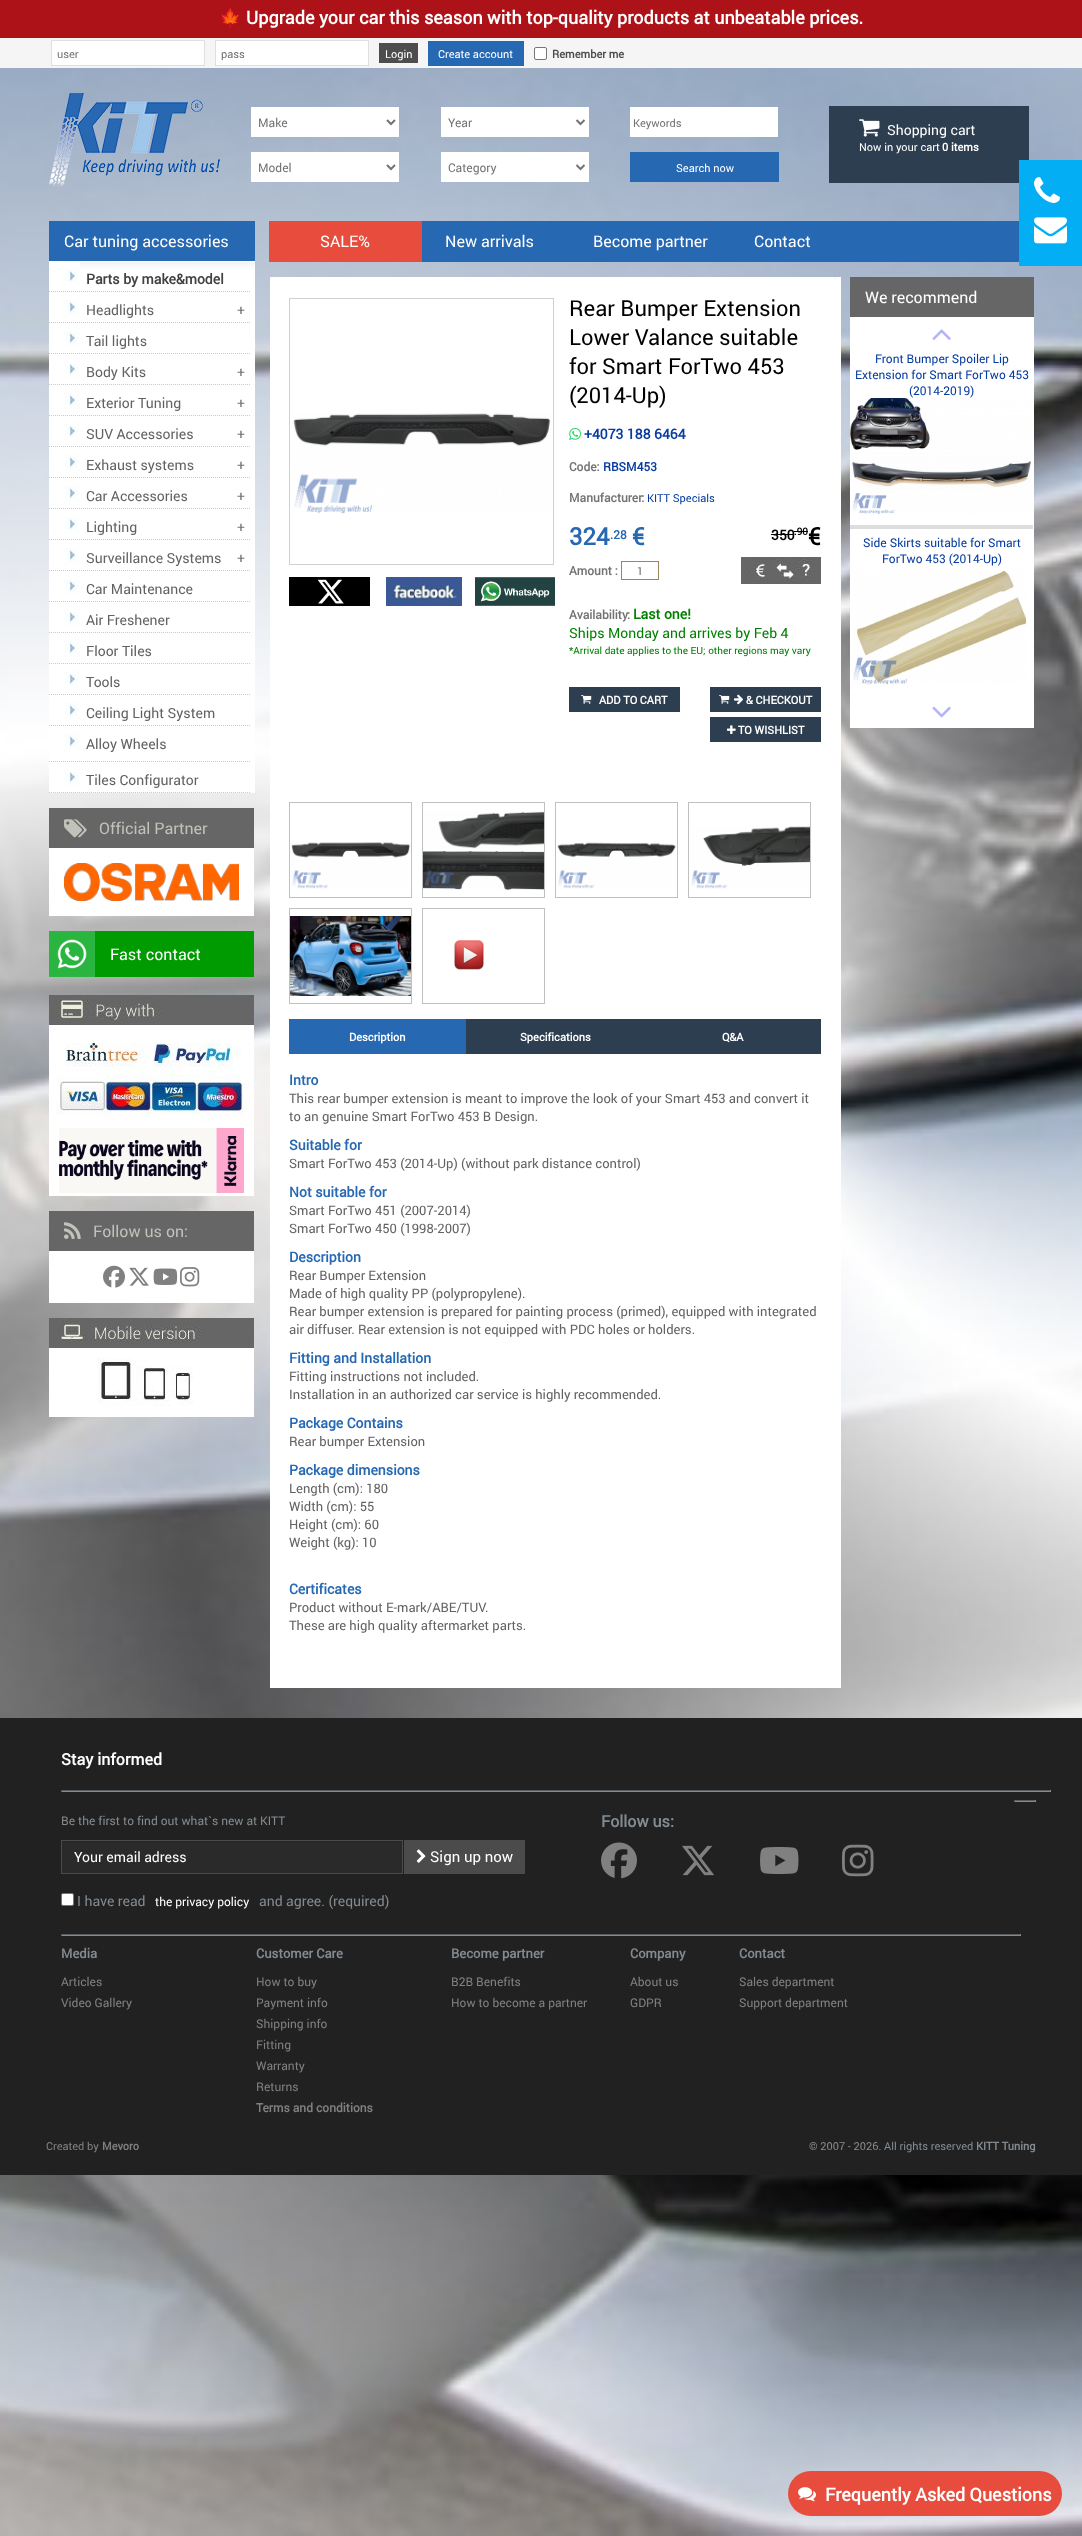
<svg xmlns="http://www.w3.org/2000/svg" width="1082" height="2536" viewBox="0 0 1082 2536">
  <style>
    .t1 { font: bold 18px Noto Color Emoji; fill: #fff; }
    .t2 { font: bold 18px roboto; fill: #fff; }
    .t3 { font: 11px roboto; fill: #737373; }
    .t4 { font: 11px roboto; fill: #fff; }
    .t5 { font: bold 11px roboto; fill: #4d4d4d; }
    .t6 { font: 12px roboto; fill: #737373; }
    .t7 { font: 14px roboto; fill: #fff; }
    .t8 { font: bold 11px roboto; fill: #fff; }
    .t9 { font: 16px roboto; fill: #fff; }
    .t10 { font: bold 14px roboto; fill: #424242; }
    .t11 { font: 14px roboto; fill: #626262; }
    .t12 { font: 14px roboto; fill: #737373; }
    .t13 { font: 16px roboto; fill: #c1c2ba; }
    .t14 { font: 22px roboto; fill: #000; }
    .t15 { font: bold 14px roboto; fill: #073ca0; }
    .t16 { font: bold 12px roboto; fill: #737373; }
    .t17 { font: bold 12px roboto; fill: #073ca0; }
    .t18 { font: 11px roboto; fill: #073ca0; }
    .t19 { font: bold 24px roboto; fill: #2668b2; }
    .t20 { font: bold 12px roboto; fill: #2668b2; }
    .t21 { font: bold 14px roboto; fill: #000; }
    .t22 { font: bold 10px roboto; fill: #000; }
    .t23 { font: bold 24px roboto; fill: #000; }
    .t24 { font: 11px roboto; fill: #696969; }
    .t25 { font: bold 14px roboto; fill: #008000; }
    .t26 { font: 14px roboto; fill: #008000; }
    .t27 { font: 10px roboto; fill: #008000; }
    .t28 { font: bold 14px roboto; fill: #2668b2; }
    .t29 { font: 13px roboto; fill: #626262; }
    .t30 { font: 12px roboto; fill: #073ca0; }
    .t31 { font: bold 16px roboto; fill: #fff; }
    .t32 { font: 12px roboto; fill: #838b91; }
    .t33 { font: 15px roboto; fill: #fff; }
    .t34 { font: 14px roboto; fill: #838b91; }
    .t35 { font: 12px roboto; fill: #fff; }
    .t36 { font: bold 16px roboto; fill: #838b91; }
    .t37 { font: bold 13px roboto; fill: #838b91; }
    .t38 { font: 12px roboto; fill: #808080; }
    .t39 { font: bold 12px roboto; fill: #808080; }
    .t40 { font: 11px roboto; fill: #808080; }
    .t41 { font: bold 11px roboto; fill: #808080; }
    .t42 { font: 11px roboto; fill: #838b91; }
    .t43 { font: bold 11px roboto; fill: #838b91; }
  </style>
  <rect width="100%" height="100%" fill="#fff"/>
  <image x="0" y="68" width="1082" height="2468" href="images/1.png"/>
  <rect x="0" y="0" width="1082" height="38" fill="#ad1218"/>
  <text x="219" y="24" class="t1">🍁</text>
  <text x="246" y="24" class="t2">Upgrade your car this season with top-quality products at unbeatable prices.</text>
  <rect x="0" y="38" width="1082" height="30" fill="#f5f5f5"/>
  <rect x="51.5" y="40.5" width="153" height="25" fill="#fff" stroke="#dfdfdf"/>
  <text x="57" y="58" class="t3">user</text>
  <rect x="215.5" y="40.5" width="153" height="25" fill="#fff" stroke="#dfdfdf"/>
  <text x="221" y="58" class="t3">pass</text>
  <rect x="379" y="43" width="39" height="20" fill="#4d4d4d"/>
  <text x="385" y="58" class="t4">Login</text>
  <rect x="428" y="41" width="96" height="25" fill="#2668b2"/>
  <text x="438" y="58" class="t4">Create account</text>
  <rect x="534.5" y="47.5" width="12" height="12" rx="1.5" fill="#fff" stroke="#767676"/>
  <text x="552" y="58" class="t5">Remember me</text>
  <image x="49" y="93" width="171" height="94" href="images/2.png"/>
  <rect x="251" y="107" width="148" height="30" fill="#fff"/>
  <path d="M387 120L391 124L395 120" fill="none" stroke="#737373" stroke-width="2"/>
  <text x="258" y="127" class="t6">Make</text>
  <rect x="441" y="107" width="148" height="30" fill="#fff"/>
  <path d="M576.5 120L580.5 124L584.5 120" fill="none" stroke="#737373" stroke-width="2"/>
  <text x="448" y="127" class="t6">Year</text>
  <rect x="630" y="107" width="148" height="30" fill="#fff"/>
  <text x="633" y="127" class="t3">Keywords</text>
  <rect x="251" y="152" width="148" height="30" fill="#fff"/>
  <path d="M387 165L391 169L395 165" fill="none" stroke="#737373" stroke-width="2"/>
  <text x="258" y="172" class="t6">Model</text>
  <rect x="441" y="152" width="148" height="30" fill="#fff"/>
  <path d="M576.5 165L580.5 169L584.5 165" fill="none" stroke="#737373" stroke-width="2"/>
  <text x="448" y="172" class="t6">Category</text>
  <rect x="630" y="152" width="149" height="30" fill="#2668b2"/>
  <text x="676" y="172" class="t4">Search now</text>
  <rect x="829" y="106" width="200" height="77" fill="#2d3e50"/>
  <image x="859" y="119" width="21" height="18" href="images/3.png"/>
  <text x="887" y="135" class="t7">Shopping cart</text>
  <text x="859" y="151" class="t4">Now in your cart</text>
  <text x="942" y="151" class="t8">0 items</text>
  <rect x="49" y="221" width="206" height="40" fill="#2668b2"/>
  <text x="64" y="247" class="t9">Car tuning accessories</text>
  <rect x="49" y="269" width="206" height="524" fill="#fff"/>
  <image x="80" y="261" width="175" height="8" href="images/4.png"/>
  <image x="49" y="261" width="31" height="24" href="images/5.png"/>
  <path d="M49 291.5H250" fill="none" stroke="#c9c9c9" stroke-dasharray="1 1"/>
  <text x="86" y="284" class="t10">Parts by make&amp;model</text>
  <image x="63" y="297" width="17" height="19" href="images/6.png"/>
  <path d="M49 322.5H250" fill="none" stroke="#c9c9c9" stroke-dasharray="1 1"/>
  <text x="86" y="315" class="t11">Headlights</text>
  <text x="237" y="315" class="t12">+</text>
  <image x="63" y="328" width="17" height="19" href="images/6.png"/>
  <path d="M49 353.5H250" fill="none" stroke="#c9c9c9" stroke-dasharray="1 1"/>
  <text x="86" y="346" class="t11">Tail lights</text>
  <image x="63" y="359" width="17" height="19" href="images/6.png"/>
  <path d="M49 384.5H250" fill="none" stroke="#c9c9c9" stroke-dasharray="1 1"/>
  <text x="86" y="377" class="t11">Body Kits</text>
  <text x="237" y="377" class="t12">+</text>
  <image x="63" y="390" width="17" height="19" href="images/6.png"/>
  <path d="M49 415.5H250" fill="none" stroke="#c9c9c9" stroke-dasharray="1 1"/>
  <text x="86" y="408" class="t11">Exterior Tuning</text>
  <text x="237" y="408" class="t12">+</text>
  <image x="63" y="421" width="17" height="19" href="images/6.png"/>
  <path d="M49 446.5H250" fill="none" stroke="#c9c9c9" stroke-dasharray="1 1"/>
  <text x="86" y="439" class="t11">SUV Accessories</text>
  <text x="237" y="439" class="t12">+</text>
  <image x="63" y="452" width="17" height="19" href="images/6.png"/>
  <path d="M49 477.5H250" fill="none" stroke="#c9c9c9" stroke-dasharray="1 1"/>
  <text x="86" y="470" class="t11">Exhaust systems</text>
  <text x="237" y="470" class="t12">+</text>
  <image x="63" y="483" width="17" height="19" href="images/6.png"/>
  <path d="M49 508.5H250" fill="none" stroke="#c9c9c9" stroke-dasharray="1 1"/>
  <text x="86" y="501" class="t11">Car Accessories</text>
  <text x="237" y="501" class="t12">+</text>
  <image x="63" y="514" width="17" height="19" href="images/6.png"/>
  <path d="M49 539.5H250" fill="none" stroke="#c9c9c9" stroke-dasharray="1 1"/>
  <text x="86" y="532" class="t11">Lighting</text>
  <text x="237" y="532" class="t12">+</text>
  <image x="63" y="545" width="17" height="19" href="images/6.png"/>
  <path d="M49 570.5H250" fill="none" stroke="#c9c9c9" stroke-dasharray="1 1"/>
  <text x="86" y="563" class="t11">Surveillance Systems</text>
  <text x="237" y="563" class="t12">+</text>
  <image x="63" y="576" width="17" height="19" href="images/6.png"/>
  <path d="M49 601.5H250" fill="none" stroke="#c9c9c9" stroke-dasharray="1 1"/>
  <text x="86" y="594" class="t11">Car Maintenance</text>
  <image x="63" y="607" width="17" height="19" href="images/6.png"/>
  <path d="M49 632.5H250" fill="none" stroke="#c9c9c9" stroke-dasharray="1 1"/>
  <text x="86" y="625" class="t11">Air Freshener</text>
  <image x="63" y="638" width="17" height="19" href="images/6.png"/>
  <path d="M49 663.5H250" fill="none" stroke="#c9c9c9" stroke-dasharray="1 1"/>
  <text x="86" y="656" class="t11">Floor Tiles</text>
  <image x="63" y="669" width="17" height="19" href="images/6.png"/>
  <path d="M49 694.5H250" fill="none" stroke="#c9c9c9" stroke-dasharray="1 1"/>
  <text x="86" y="687" class="t11">Tools</text>
  <image x="63" y="700" width="17" height="19" href="images/6.png"/>
  <path d="M49 725.5H250" fill="none" stroke="#c9c9c9" stroke-dasharray="1 1"/>
  <text x="86" y="718" class="t11">Ceiling Light System</text>
  <image x="63" y="731" width="17" height="19" href="images/6.png"/>
  <path d="M49 761.5H250" fill="none" stroke="#c9c9c9" stroke-dasharray="1 1"/>
  <text x="86" y="749" class="t11">Alloy Wheels</text>
  <image x="63" y="767" width="17" height="19" href="images/6.png"/>
  <path d="M49 792.5H250" fill="none" stroke="#c9c9c9" stroke-dasharray="1 1"/>
  <text x="86" y="785" class="t11">Tiles Configurator</text>
  <rect x="49" y="848" width="205" height="68" fill="#fff"/>
  <rect x="49" y="808" width="205" height="40" fill="#666"/>
  <image x="64" y="819" width="23" height="19" href="images/7.png"/>
  <text x="99" y="834" class="t13">Official Partner</text>
  <image x="64" y="863" width="175" height="38" href="images/8.png"/>
  <image x="49" y="931" width="46" height="46" href="images/9.png"/>
  <rect x="95" y="931" width="159" height="46" fill="#009b00"/>
  <text x="110" y="960" class="t9">Fast contact</text>
  <rect x="49" y="1123" width="205" height="73" fill="#fff"/>
  <image x="49" y="995" width="205" height="128" href="images/10.png"/>
  <image x="59" y="1128" width="185" height="65" href="images/11.png"/>
  <rect x="49" y="1251" width="205" height="52" fill="#fff"/>
  <rect x="49" y="1211" width="205" height="40" fill="#666"/>
  <image x="64" y="1222" width="17" height="17" href="images/12.png"/>
  <text x="93" y="1237" class="t13">Follow us on:</text>
  <image x="103" y="1265" width="22" height="23" href="images/13.png"/>
  <image x="129" y="1267" width="20" height="19" href="images/14.png"/>
  <image x="153" y="1268" width="25" height="17" href="images/15.png"/>
  <image x="180" y="1267" width="20" height="20" href="images/16.png"/>
  <rect x="49" y="1406" width="205" height="11" fill="#fff"/>
  <image x="49" y="1318" width="205" height="88" href="images/17.png"/>
  <rect x="270" y="277" width="571" height="1411" fill="#fff"/>
  <image x="270" y="277" width="566" height="3" href="images/18.png"/>
  <rect x="289" y="298" width="265" height="1" fill="#ced1d3"/>
  <rect x="553" y="298" width="1" height="267" fill="#ced1d3"/>
  <rect x="289" y="564" width="265" height="1" fill="#ced1d3"/>
  <rect x="289" y="298" width="1" height="267" fill="#ced1d3"/>
  <image x="293" y="413" width="258" height="101" href="images/19.png"/>
  <rect x="289" y="577" width="81" height="29" fill="#000"/>
  <image x="317" y="579" width="27" height="25" href="images/20.png"/>
  <image x="386" y="577" width="76" height="29" href="images/21.png"/>
  <image x="475" y="577" width="80" height="29" href="images/22.png"/>
  <text x="569" y="316" class="t14">Rear Bumper Extension</text>
  <text x="569" y="345" class="t14">Lower Valance suitable</text>
  <text x="569" y="374" class="t14">for Smart ForTwo 453</text>
  <text x="569" y="403" class="t14">(2014-Up)</text>
  <image x="569" y="428" width="12" height="12" href="images/23.png"/>
  <text x="584" y="439" class="t15">+4073 188 6464</text>
  <text x="569" y="471" class="t16">Code:</text>
  <text x="603" y="471" class="t17">RBSM453</text>
  <text x="569" y="502" class="t16">Manufacturer:</text>
  <text x="647" y="502" class="t18">KITT Specials</text>
  <text x="569" y="545" class="t19">324</text>
  <text x="610" y="539" class="t20">.28</text>
  <text x="632" y="545" class="t19">€</text>
  <text x="771" y="540" class="t21">350</text>
  <rect x="771" y="534" width="23" height="1" fill="#000"/>
  <text x="794" y="535" class="t22">.90</text>
  <rect x="794" y="531" width="14" height="1" fill="#000"/>
  <text x="808" y="545" class="t23">€</text>
  <text x="569" y="575" class="t16">Amount :</text>
  <rect x="621.5" y="561.5" width="37" height="18" fill="none" stroke="#98875b"/>
  <text x="637" y="575" class="t24">1</text>
  <image x="741" y="557" width="80" height="27" href="images/24.png"/>
  <text x="569" y="619" class="t16">Availability:</text>
  <text x="633" y="619" class="t25">Last one!</text>
  <text x="569" y="638" class="t26">Ships Monday and arrives by Feb 4</text>
  <text x="569" y="654" class="t27">*Arrival date applies to the EU; other regions may vary</text>
  <rect x="569" y="687" width="111" height="25" fill="#2d3e50"/>
  <image x="581" y="695" width="11" height="9" href="images/25.png"/>
  <text x="599" y="704" class="t8">ADD TO CART</text>
  <rect x="710" y="687" width="111" height="25" fill="#2d3e50"/>
  <image x="719" y="695" width="11" height="9" href="images/25.png"/>
  <image x="734" y="694" width="9" height="11" href="images/26.png"/>
  <text x="746" y="704" class="t8">&amp; CHECKOUT</text>
  <rect x="710" y="717" width="111" height="25" fill="#2d3e50"/>
  <image x="727" y="725" width="9" height="9" href="images/27.png"/>
  <text x="738" y="734" class="t8">TO WISHLIST</text>
  <rect x="289.5" y="802.5" width="122" height="95" fill="none" stroke="#c0c0c0"/>
  <image x="291" y="842" width="120" height="47" href="images/28.png"/>
  <rect x="422.5" y="802.5" width="122" height="95" fill="none" stroke="#c0c0c0"/>
  <image x="423" y="811" width="121" height="79" href="images/29.png"/>
  <rect x="555.5" y="802.5" width="122" height="95" fill="none" stroke="#c0c0c0"/>
  <image x="557" y="842" width="119" height="47" href="images/30.png"/>
  <rect x="688.5" y="802.5" width="122" height="95" fill="none" stroke="#c0c0c0"/>
  <image x="691" y="826" width="119" height="63" href="images/31.png"/>
  <rect x="289.5" y="908.5" width="122" height="95" fill="none" stroke="#c0c0c0"/>
  <image x="290" y="916" width="121" height="80" href="images/32.png"/>
  <rect x="422.5" y="908.5" width="122" height="95" fill="none" stroke="#c0c0c0"/>
  <image x="454" y="940" width="30" height="30" href="images/33.png"/>
  <rect x="289" y="1019" width="177" height="35" fill="#2668b2"/>
  <text x="349" y="1041" class="t8">Description</text>
  <rect x="466" y="1019" width="355" height="35" fill="#2d3e50"/>
  <text x="520" y="1041" class="t8">Specifications</text>
  <text x="722" y="1041" class="t8">Q&amp;A</text>
  <text x="289" y="1085" class="t28">Intro</text>
  <text x="289" y="1103" class="t29">This rear bumper extension is meant to improve the look of your Smart 453 and convert it</text>
  <text x="289" y="1121" class="t29">to an genuine Smart ForTwo 453 B Design.</text>
  <text x="289" y="1150" class="t28">Suitable for</text>
  <text x="289" y="1168" class="t29">Smart ForTwo 453 (2014-Up) (without park distance control)</text>
  <text x="289" y="1197" class="t28">Not suitable for</text>
  <text x="289" y="1215" class="t29">Smart ForTwo 451 (2007-2014)</text>
  <text x="289" y="1233" class="t29">Smart ForTwo 450 (1998-2007)</text>
  <text x="289" y="1262" class="t28">Description</text>
  <text x="289" y="1280" class="t29">Rear Bumper Extension</text>
  <text x="289" y="1298" class="t29">Made of high quality PP (polypropylene).</text>
  <text x="289" y="1316" class="t29">Rear bumper extension is prepared for painting process (primed), equipped with integrated</text>
  <text x="289" y="1334" class="t29">air diffuser. Rear extension is not equipped with PDC holes or holders.</text>
  <text x="289" y="1363" class="t28">Fitting and Installation</text>
  <text x="289" y="1381" class="t29">Fitting instructions not included.</text>
  <text x="289" y="1399" class="t29">Installation in an authorized car service is highly recommended.</text>
  <text x="289" y="1428" class="t28">Package Contains</text>
  <text x="289" y="1446" class="t29">Rear bumper Extension</text>
  <text x="289" y="1475" class="t28">Package dimensions</text>
  <text x="289" y="1493" class="t29">Length (cm): 180</text>
  <text x="289" y="1511" class="t29">Width (cm): 55</text>
  <text x="289" y="1529" class="t29">Height (cm): 60</text>
  <text x="289" y="1547" class="t29">Weight (kg): 10</text>
  <text x="289" y="1594" class="t28">Certificates</text>
  <text x="289" y="1612" class="t29">Product without E-mark/ABE/TUV.</text>
  <text x="289" y="1630" class="t29">These are high quality aftermarket parts.</text>
  <rect x="850" y="277" width="184" height="40" fill="#666"/>
  <text x="865" y="303" class="t9">We recommend</text>
  <rect x="850" y="317" width="184" height="411" fill="#fff"/>
  <image x="932" y="329" width="19" height="11" href="images/34.png"/>
  <text x="875" y="363" class="t30">Front Bumper Spoiler Lip</text>
  <text x="855" y="379" class="t30">Extension for Smart ForTwo 453</text>
  <text x="909" y="395" class="t30">(2014-2019)</text>
  <image x="850" y="398" width="181" height="116" href="images/35.png"/>
  <rect x="850" y="525" width="183" height="4" fill="#ddd"/>
  <text x="863" y="547" class="t30">Side Skirts suitable for Smart</text>
  <text x="882" y="563" class="t30">ForTwo 453 (2014-Up)</text>
  <image x="853" y="570" width="174" height="115" href="images/36.png"/>
  <image x="932" y="706" width="19" height="12" href="images/37.png"/>
  <rect x="422" y="221" width="597" height="41" fill="#2668b2"/>
  <rect x="269" y="221" width="153" height="41" fill="#e74c3c"/>
  <text x="320" y="247" class="t9">SALE%</text>
  <text x="445" y="247" class="t9">New arrivals</text>
  <text x="593" y="247" class="t9">Become partner</text>
  <text x="754" y="247" class="t9">Contact</text>
  <rect x="1019" y="160" width="63" height="106" fill="#04aef4"/>
  <image x="1034" y="177" width="26" height="26" href="images/38.png"/>
  <image x="1034" y="217" width="33" height="27" href="images/39.png"/>
  <rect x="0" y="1718" width="1082" height="457" fill="#212121"/>
  <text x="61" y="1765" class="t31">Stay informed</text>
  <rect x="61" y="1790" width="990" height="1" fill="#575d61"/>
  <rect x="1050" y="1790" width="1" height="2" fill="#838b91"/>
  <rect x="61" y="1791" width="990" height="1" fill="#838b91"/>
  <rect x="61" y="1790" width="1" height="2" fill="#575d61"/>
  <rect x="1014" y="1800" width="22" height="1" fill="#575d61"/>
  <rect x="1035" y="1800" width="1" height="2" fill="#838b91"/>
  <rect x="1014" y="1801" width="22" height="1" fill="#838b91"/>
  <rect x="1014" y="1800" width="1" height="2" fill="#575d61"/>
  <text x="61" y="1825" class="t32">Be the first to find out what`s new at KITT</text>
  <rect x="62" y="1842" width="340" height="31" fill="#2a2a2a"/>
  <rect x="62" y="1841" width="340" height="1" fill="#272727"/>
  <rect x="61.5" y="1840.5" width="341" height="33" fill="none" stroke="#4b4b4b"/>
  <text x="74" y="1862" class="t7">Your email adress</text>
  <rect x="404" y="1840" width="121" height="34" fill="#4b4b4b"/>
  <image x="416" y="1849" width="10" height="14" href="images/40.png"/>
  <text x="430" y="1862" class="t33">Sign up now</text>
  <rect x="61.5" y="1893.5" width="12" height="12" rx="1.5" fill="#fff" stroke="#767676"/>
  <text x="77" y="1906" class="t34">I have read</text>
  <text x="155" y="1906" class="t35">the privacy policy</text>
  <text x="259" y="1906" class="t34">and agree. (required)</text>
  <text x="601" y="1827" class="t36">Follow us:</text>
  <image x="601" y="1842" width="36" height="37" href="images/41.png"/>
  <image x="682" y="1845" width="32" height="31" href="images/42.png"/>
  <image x="760" y="1847" width="39" height="27" href="images/43.png"/>
  <image x="842" y="1844" width="32" height="33" href="images/44.png"/>
  <rect x="61" y="1934" width="960" height="1" fill="#575d61"/>
  <rect x="1020" y="1934" width="1" height="2" fill="#838b91"/>
  <rect x="61" y="1935" width="960" height="1" fill="#838b91"/>
  <rect x="61" y="1934" width="1" height="2" fill="#575d61"/>
  <text x="61" y="1958" class="t37">Media</text>
  <text x="61" y="1986" class="t38">Articles</text>
  <text x="61" y="2007" class="t38">Video Gallery</text>
  <text x="256" y="1958" class="t37">Customer Care</text>
  <text x="256" y="1986" class="t38">How to buy</text>
  <text x="256" y="2007" class="t38">Payment info</text>
  <text x="256" y="2028" class="t38">Shipping info</text>
  <text x="256" y="2049" class="t38">Fitting</text>
  <text x="256" y="2070" class="t38">Warranty</text>
  <text x="256" y="2091" class="t38">Returns</text>
  <text x="256" y="2112" class="t39">Terms and conditions</text>
  <text x="451" y="1958" class="t37">Become partner</text>
  <text x="451" y="1986" class="t38">B2B Benefits</text>
  <text x="451" y="2007" class="t38">How to become a partner</text>
  <text x="630" y="1958" class="t37">Company</text>
  <text x="630" y="1986" class="t38">About us</text>
  <text x="630" y="2007" class="t38">GDPR</text>
  <text x="739" y="1958" class="t37">Contact</text>
  <text x="739" y="1986" class="t38">Sales department</text>
  <text x="739" y="2007" class="t38">Support department</text>
  <text x="46" y="2150" class="t40">Created by</text>
  <text x="102" y="2150" class="t41">Mevoro</text>
  <text x="809" y="2150" class="t42">© 2007 - 2026. All rights reserved</text>
  <text x="976" y="2150" class="t43">KITT Tuning</text>
  <rect x="788" y="2471" width="274" height="45" rx="22.5" fill="#e74c3c"/>
  <image x="798" y="2487" width="18" height="15" href="images/45.png"/>
  <text x="825" y="2501" class="t2">Frequently Asked Questions</text>
</svg>
